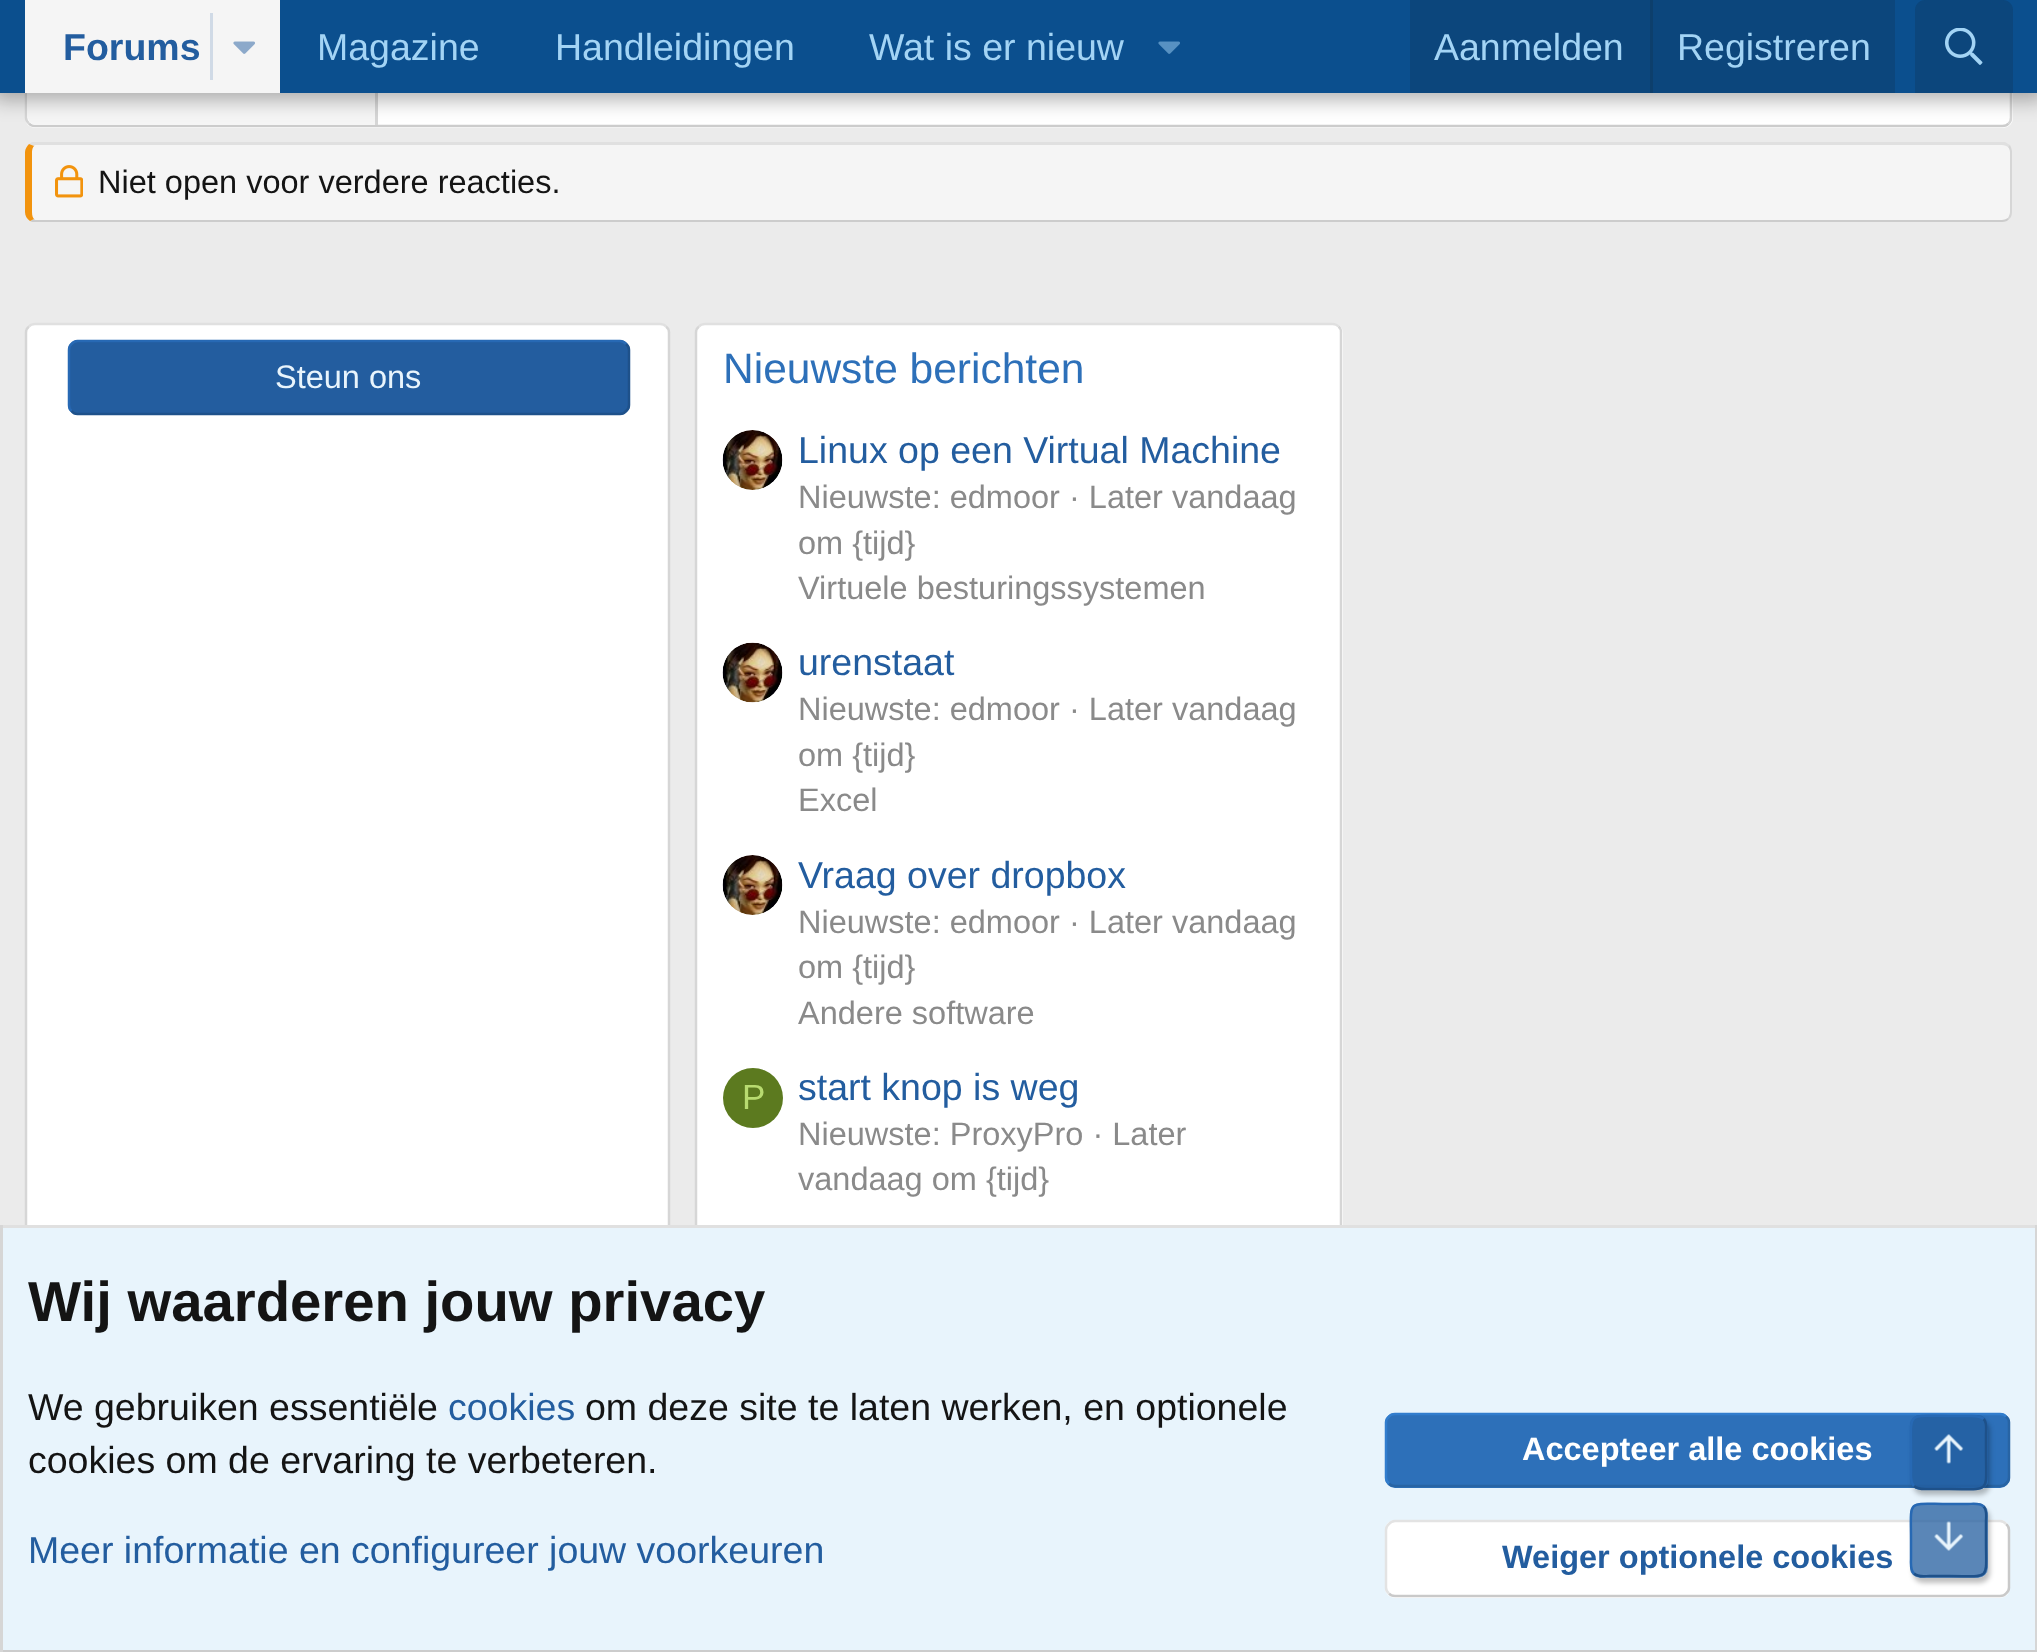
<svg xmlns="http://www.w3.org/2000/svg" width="2037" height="1652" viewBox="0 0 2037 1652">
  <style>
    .t1 { font: bold 37.5px Liberation Sans; fill: #235d9f; }
    .t2 { font: 37.5px Liberation Sans; fill: #a3d4f5; }
    .t3 { font: 32.5px Liberation Sans; fill: #141414; }
    .t4 { font: 32.5px Liberation Sans; fill: #e8f4fc; }
    .t5 { font: 42.5px Liberation Sans; fill: #2d70b9; }
    .t6 { font: 37.5px Liberation Sans; fill: #235d9f; }
    .t7 { font: 32.5px Liberation Sans; fill: #8a8a8a; }
    .t8 { font: 35px Liberation Sans; fill: #b8db70; }
    .t9 { font: bold 56.25px Liberation Sans; fill: #141414; }
    .t10 { font: 37.5px Liberation Sans; fill: #141414; }
    .t11 { font: bold 32.5px Liberation Sans; fill: #fff; }
    .t12 { font: bold 32.5px Liberation Sans; fill: #235d9f; }
  </style>
  <defs>
    <clipPath id="clip1"><path d="M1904 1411H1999V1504H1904ZM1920 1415H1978C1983.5 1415 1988 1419.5 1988 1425V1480C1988 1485.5 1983.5 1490 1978 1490H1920C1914.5 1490 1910 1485.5 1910 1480V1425C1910 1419.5 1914.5 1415 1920 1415Z" clip-rule="evenodd"/></clipPath>
    <clipPath id="clip2"><path d="M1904 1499H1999V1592H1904ZM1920 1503H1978C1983.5 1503 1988 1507.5 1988 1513V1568C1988 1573.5 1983.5 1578 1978 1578H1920C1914.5 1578 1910 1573.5 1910 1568V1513C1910 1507.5 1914.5 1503 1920 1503Z" clip-rule="evenodd"/></clipPath>
  </defs>
  <rect width="100%" height="100%" fill="#ebebeb"/>
  <rect x="25" y="-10" width="1988" height="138" rx="10" fill="#fff"/>
  <path d="M2008.5-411C2010.5-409.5 2011-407.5 2011-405V117.5C2011 120 2010.5 122 2008.5 123.5" fill="none" stroke="#d6d6d6" stroke-width="2.5"/>
  <path d="M2008.5 123.5C2007 125.5 2005 126 2002.5 126H35C32.5 126 30.5 125.5 29 123.5" fill="none" stroke="#ccc" stroke-width="2.5"/>
  <path d="M29 123.5C27 122 26 120 26 117.5V-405C26-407.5 27-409.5 29-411" fill="none" stroke="#d6d6d6" stroke-width="2.5"/>
  <path d="M36-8H378V125H36C31.5 125 28 121.5 28 117V0C28-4.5 31.5-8 36-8Z" fill="#f5f5f5"/>
  <rect x="375" y="93" width="3" height="32" fill="#d6d6d6"/>
  <rect x="-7" y="-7" width="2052" height="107" fill="#0000004d" filter="blur(10px)"/>
  <rect x="0" y="0" width="2037" height="93" fill="#0b4f8e"/>
  <rect x="25" y="0" width="255" height="93" fill="#f5f5f5"/>
  <text x="63" y="60" class="t1">Forums</text>
  <rect x="210" y="13" width="3" height="67" fill="#d0dae6"/>
  <image x="233" y="41" width="22" height="13" href="images/1.png"/>
  <text x="317" y="60" class="t2">Magazine</text>
  <text x="555" y="60" class="t2">Handleidingen</text>
  <text x="869" y="60" class="t2">Wat is er nieuw</text>
  <image x="1158" y="41" width="22" height="13" href="images/2.png"/>
  <rect x="1410" y="0" width="485" height="93" fill="#0c467c"/>
  <text x="1434" y="60" class="t2">Aanmelden</text>
  <rect x="1650" y="0" width="3" height="93" fill="#0d3f6c"/>
  <text x="1677" y="60" class="t2">Registreren</text>
  <path d="M1925 0H2003C2008.5 0 2013 4.5 2013 10V93H1915V10C1915 4.5 1919.5 0 1925 0Z" fill="#0c467c"/>
  <image x="1945" y="28" width="38" height="37" href="images/3.png"/>
  <path d="M35 145H2002C2007 145 2010 148 2010 152V212C2010 217 2007 220 2002 220H35C34 220 32 217 32 212V152C32 148 34 145 35 145Z" fill="#f5f5f5"/>
  <path d="M35 145L34 146L29 144L32 142H2005C2007 143 2008 144 2010 145L2008 147C2007 146 2005 145 2002 145Z" fill="#e0e0e0"/>
  <path d="M2010 145C2011 147 2012 150 2012 152V212C2012 215 2011 218 2009 219L2008 218C2009 216 2010 214 2010 212V152C2010 150 2009 148 2008 147Z" fill="#d6d6d6"/>
  <path d="M2009 219C2008 221 2005 222 2002 222H35C33 222 31 222 30 221L34 219L35 220H2002C2004 220 2006 219 2008 218Z" fill="#ccc"/>
  <path d="M25 152V212C25 216 27 219 30 221L34 219C33 218 32 216 32 212V152C32 149 33 147 34 146L29 144C27 146 25 149 25 152Z" fill="#f2930d"/>
  <image x="55" y="165" width="28" height="33" href="images/4.png"/>
  <text x="98" y="193" class="t3">Niet open voor verdere reacties.</text>
  <rect x="25" y="323" width="645" height="1155" rx="10" fill="#fff"/>
  <path d="M29 326.5C30.5 324.5 32.5 324 35 324H660C662.5 324 664.5 324.5 666 326.5" fill="none" stroke="#e0e0e0" stroke-width="2.5"/>
  <path d="M666 326.5C668 328 669 330 669 332.5V1467.5C669 1470 668 1472 666 1473.5" fill="none" stroke="#d6d6d6" stroke-width="2.5"/>
  <path d="M29 1473.5C27 1472 26 1470 26 1467.5V332.5C26 330 27 328 29 326.5" fill="none" stroke="#d6d6d6" stroke-width="2.5"/>
  <rect x="68" y="340" width="562" height="75" rx="10" fill="#235d9f"/>
  <path d="M626 344C628 345.5 629 347.5 629 350V405C629 407.5 628 409.5 626 411C624.5 413 622.5 414 620 414H77.5C75 414 73 413 71.5 411" fill="none" stroke="#1e518a" stroke-width="2.5"/>
  <path d="M71.5 411C69.5 409.5 69 407.5 69 405V350C69 347.5 69.5 345.5 71.5 344C73 342 75 341 77.5 341H620C622.5 341 624.5 342 626 344" fill="none" stroke="#2769b4" stroke-width="2.5"/>
  <text x="275" y="388" class="t4">Steun ons</text>
  <rect x="695" y="323" width="648" height="1155" rx="10" fill="#fff"/>
  <path d="M699 326.5C700.5 324.5 702.5 324 705 324H1332.5C1335 324 1337 324.5 1338.5 326.5" fill="none" stroke="#e0e0e0" stroke-width="2.5"/>
  <path d="M1338.5 326.5C1340.5 328 1341 330 1341 332.5V1467.5C1341 1470 1340.5 1472 1338.5 1473.5" fill="none" stroke="#d6d6d6" stroke-width="2.5"/>
  <path d="M699 1473.5C697 1472 696 1470 696 1467.5V332.5C696 330 697 328 699 326.5" fill="none" stroke="#d6d6d6" stroke-width="2.5"/>
  <text x="723" y="383" class="t5">Nieuwste berichten</text>
  <image x="722" y="430" width="61" height="60" href="images/5.png"/>
  <text x="798" y="463" class="t6">Linux op een Virtual Machine</text>
  <text x="798" y="508" class="t7">Nieuwste: edmoor · Later vandaag</text>
  <text x="798" y="554" class="t7">om {tijd}</text>
  <text x="798" y="599" class="t7">Virtuele besturingssystemen</text>
  <image x="722" y="642" width="61" height="61" href="images/6.png"/>
  <text x="798" y="675" class="t6">urenstaat</text>
  <text x="798" y="720" class="t7">Nieuwste: edmoor · Later vandaag</text>
  <text x="798" y="766" class="t7">om {tijd}</text>
  <text x="798" y="811" class="t7">Excel</text>
  <image x="722" y="855" width="61" height="60" href="images/5.png"/>
  <text x="798" y="888" class="t6">Vraag over dropbox</text>
  <text x="798" y="933" class="t7">Nieuwste: edmoor · Later vandaag</text>
  <text x="798" y="978" class="t7">om {tijd}</text>
  <text x="798" y="1024" class="t7">Andere software</text>
  <circle cx="753" cy="1098" r="30" fill="#5c7a1f"/>
  <text x="742" y="1109" class="t8">P</text>
  <text x="798" y="1100" class="t6">start knop is weg</text>
  <text x="798" y="1145" class="t7">Nieuwste: ProxyPro · Later</text>
  <text x="798" y="1190" class="t7">vandaag om {tijd}</text>
  <rect x="3" y="1228" width="2032" height="422" fill="#e8f4fc"/>
  <rect x="0" y="1225" width="2037" height="3" fill="#e0e0e0"/>
  <rect x="2035" y="1225" width="2" height="427" fill="#d6d6d6"/>
  <rect x="0" y="1650" width="2037" height="2" fill="#ccc"/>
  <rect x="0" y="1225" width="3" height="427" fill="#d6d6d6"/>
  <text x="28" y="1321" class="t9">Wij waarderen jouw privacy</text>
  <text x="28" y="1420" class="t10">We gebruiken essentiële</text>
  <text x="448" y="1420" class="t6">cookies</text>
  <text x="585" y="1420" class="t10">om deze site te laten werken, en optionele</text>
  <text x="28" y="1473" class="t10">cookies om de ervaring te verbeteren.</text>
  <text x="28" y="1563" class="t6">Meer informatie en configureer jouw voorkeuren</text>
  <rect x="1385" y="1413" width="625" height="75" rx="10" fill="#2d70b9"/>
  <path d="M2006 1416.5C2008 1418 2009 1420 2009 1422.5V1477.5C2009 1480 2008 1482 2006 1483.5C2004.5 1485.5 2002.5 1486 2000 1486H1395C1392.5 1486 1390.5 1485.5 1389 1483.5" fill="none" stroke="#2864a4" stroke-width="2.5"/>
  <path d="M1389 1483.5C1387 1482 1386 1480 1386 1477.5V1422.5C1386 1420 1387 1418 1389 1416.5C1390.5 1414.5 1392.5 1414 1395 1414H2000C2002.5 1414 2004.5 1414.5 2006 1416.5" fill="none" stroke="#327dcd" stroke-width="2.5"/>
  <text x="1522" y="1460" class="t11">Accepteer alle cookies</text>
  <rect x="1385" y="1520" width="625" height="78" rx="10" fill="#fff"/>
  <path d="M2006 1524C2008 1525.5 2009 1527.5 2009 1530V1587.5C2009 1590 2008 1592 2006 1593.5C2004.5 1595.5 2002.5 1596 2000 1596H1395C1392.5 1596 1390.5 1595.5 1389 1593.5" fill="none" stroke="#c9c9c9" stroke-width="2.5"/>
  <path d="M1389 1593.5C1387 1592 1386 1590 1386 1587.5V1530C1386 1527.5 1387 1525.5 1389 1524C1390.5 1522 1392.5 1521 1395 1521H2000C2002.5 1521 2004.5 1522 2006 1524" fill="none" stroke="#e3e3e3" stroke-width="2.5"/>
  <text x="1502" y="1568" class="t12">Weiger optionele cookies</text>
  <g clip-path="url(#clip1)">
    <rect x="1913" y="1420" width="77" height="75" rx="10" fill="#00000040" filter="blur(2.5px)"/>
  </g>
  <rect x="1910" y="1415" width="78" height="75" rx="10" fill="#235d9fbf"/>
  <path d="M1983.5 1419C1987.5 1422.5 1986 1429.5 1986 1434V1452.5C1986 1494.5 1991.5 1489 1949 1489H1929.5C1925 1489 1918 1490 1914 1486" fill="none" stroke="#1e518a" stroke-width="2.5"/>
  <path d="M1914 1486C1910 1482.5 1911 1475.5 1911 1471V1452.5C1911 1410.5 1906 1416 1949 1416H1968C1972.5 1416 1979.5 1415 1983.5 1419" fill="none" stroke="#2769b4" stroke-width="2.5"/>
  <image x="1934" y="1434" width="30" height="30" href="images/7.png"/>
  <g clip-path="url(#clip2)">
    <rect x="1913" y="1508" width="77" height="75" rx="10" fill="#00000040" filter="blur(2.5px)"/>
  </g>
  <rect x="1910" y="1503" width="78" height="75" rx="10" fill="#235d9fbf"/>
  <path d="M1983.5 1506.5C1987.5 1510 1986 1517 1986 1521.5V1540C1986 1582 1991.5 1576 1949 1576H1929.5C1925 1576 1918 1577.5 1914 1573.5" fill="none" stroke="#1e518a" stroke-width="2.5"/>
  <path d="M1914 1573.5C1910 1570 1911 1563 1911 1558.5V1540C1911 1498 1906 1504 1949 1504H1968C1972.5 1504 1979.5 1502.5 1983.5 1506.5" fill="none" stroke="#2769b4" stroke-width="2.5"/>
  <image x="1934" y="1521" width="30" height="30" href="images/8.png"/>
</svg>
